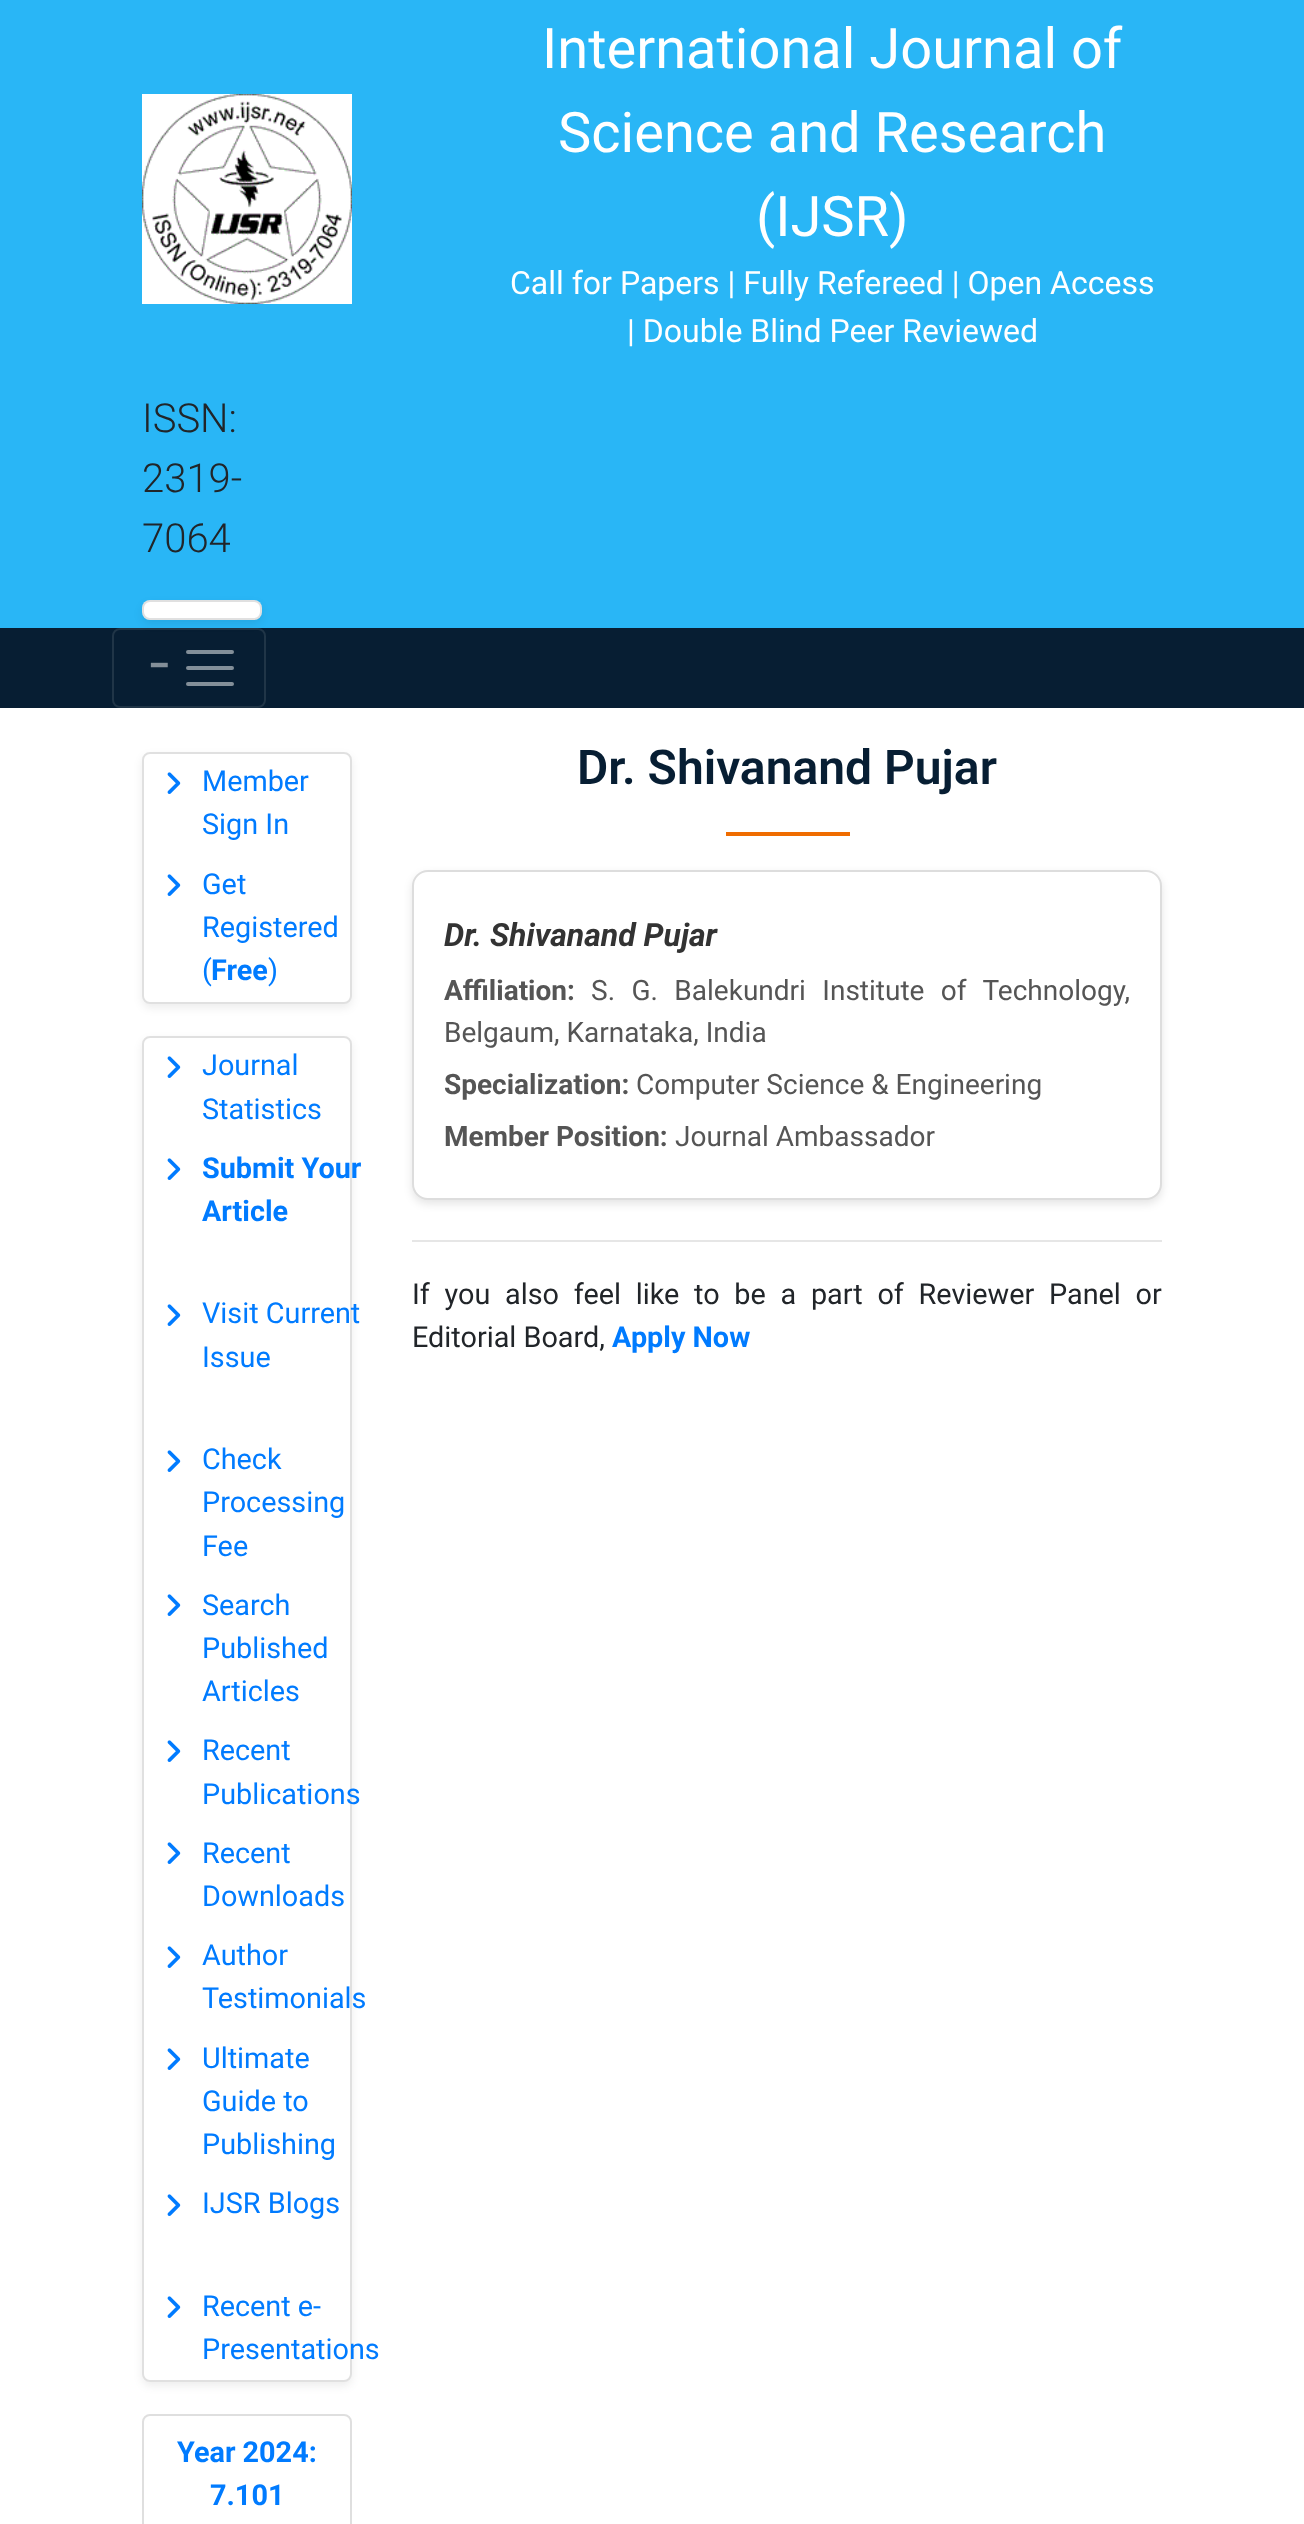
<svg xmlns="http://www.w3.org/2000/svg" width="1304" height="2524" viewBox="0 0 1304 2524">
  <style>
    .t1 { font: 56px Roboto; fill: #fff; }
    .t2 { font: 32px Roboto; fill: #fff; }
    .t3 { font: 300 40px Roboto; fill: #212529; }
    .t4 { font: bold 40px Roboto; fill: #838f99; }
    .t5 { font: 28.8px Roboto; fill: #007bff; }
    .t6 { font: bold 28.8px Roboto; fill: #007bff; }
    .t7 { font: 600 48px Roboto; fill: #071e33; }
    .t8 { font: italic bold 32px Roboto; fill: #333; }
    .t9 { font: bold 28px Roboto; fill: #555; }
    .t10 { font: 28px Roboto; fill: #555; }
    .t11 { font: 28.8px Roboto; fill: #212529; }
  </style>
  <rect width="100%" height="100%" fill="#fff"/>
  <rect x="0" y="0" width="1304" height="628" fill="#29b6f6"/>
  <image x="142" y="94" width="210" height="210" href="images/1.png"/>
  <text x="542" y="68" class="t1">International Journal of</text>
  <text x="558" y="152" class="t1">Science and Research</text>
  <text x="756" y="236" class="t1">(IJSR)</text>
  <text x="510" y="294" class="t2">Call for Papers | Fully Refereed | Open Access</text>
  <text x="627" y="342" class="t2">| Double Blind Peer Reviewed</text>
  <text x="142" y="432" class="t3">ISSN:</text>
  <text x="142" y="492" class="t3">2319-</text>
  <text x="142" y="552" class="t3">7064</text>
  <rect x="0" y="628" width="1304" height="80" fill="#071e33"/>
  <rect x="113" y="629" width="152" height="78" rx="7" fill="none" stroke="#203547" stroke-width="2"/>
  <rect x="142" y="604" width="120" height="20" rx="8" fill="#00000012" filter="blur(4px)"/>
  <rect x="142" y="600" width="120" height="20" rx="8" fill="#fff"/>
  <rect x="143" y="601" width="118" height="18" rx="7" fill="none" stroke="#0000001f" stroke-width="2"/>
  <text x="148" y="679" class="t4">−</text>
  <path d="M188 652H232M188 668H232M188 684H232" fill="none" stroke="#838f99" stroke-width="4" stroke-linecap="round"/>
  <rect x="142" y="756" width="210" height="252" rx="8" fill="#00000012" filter="blur(4px)"/>
  <rect x="142" y="752" width="210" height="252" rx="8" fill="#fff"/>
  <rect x="143" y="753" width="208" height="250" rx="7" fill="none" stroke="#0000001f" stroke-width="2"/>
  <image x="167" y="772" width="14" height="22" href="images/2.png"/>
  <text x="202" y="791" class="t5">Member</text>
  <text x="202" y="834" class="t5">Sign In</text>
  <image x="167" y="874" width="14" height="22" href="images/2.png"/>
  <text x="202" y="894" class="t5">Get</text>
  <text x="202" y="937" class="t5">Registered</text>
  <text x="202" y="980" class="t5">(</text>
  <text x="211" y="980" class="t6">Free</text>
  <text x="268" y="980" class="t5">)</text>
  <rect x="142" y="1040" width="210" height="1346" rx="8" fill="#00000012" filter="blur(4px)"/>
  <rect x="142" y="1036" width="210" height="1346" rx="8" fill="#fff"/>
  <rect x="143" y="1037" width="208" height="1344" rx="7" fill="none" stroke="#0000001f" stroke-width="2"/>
  <image x="167" y="1056" width="14" height="22" href="images/2.png"/>
  <text x="202" y="1075" class="t5">Journal</text>
  <text x="202" y="1119" class="t5">Statistics</text>
  <image x="167" y="1158" width="14" height="22" href="images/2.png"/>
  <text x="202" y="1178" class="t6">Submit Your</text>
  <text x="202" y="1221" class="t6">Article</text>
  <image x="167" y="1304" width="14" height="22" href="images/2.png"/>
  <text x="202" y="1323" class="t5">Visit Current</text>
  <text x="202" y="1367" class="t5">Issue</text>
  <image x="167" y="1450" width="14" height="22" href="images/2.png"/>
  <text x="202" y="1469" class="t5">Check</text>
  <text x="202" y="1512" class="t5">Processing</text>
  <text x="202" y="1556" class="t5">Fee</text>
  <image x="167" y="1594" width="14" height="22" href="images/2.png"/>
  <text x="202" y="1615" class="t5">Search</text>
  <text x="202" y="1658" class="t5">Published</text>
  <text x="202" y="1701" class="t5">Articles</text>
  <image x="167" y="1740" width="14" height="22" href="images/2.png"/>
  <text x="202" y="1760" class="t5">Recent</text>
  <text x="202" y="1804" class="t5">Publications</text>
  <image x="167" y="1842" width="14" height="22" href="images/2.png"/>
  <text x="202" y="1863" class="t5">Recent</text>
  <text x="202" y="1906" class="t5">Downloads</text>
  <image x="167" y="1946" width="14" height="22" href="images/2.png"/>
  <text x="202" y="1965" class="t5">Author</text>
  <text x="202" y="2008" class="t5">Testimonials</text>
  <image x="167" y="2048" width="14" height="22" href="images/2.png"/>
  <text x="202" y="2068" class="t5">Ultimate</text>
  <text x="202" y="2111" class="t5">Guide to</text>
  <text x="202" y="2154" class="t5">Publishing</text>
  <image x="167" y="2194" width="14" height="22" href="images/2.png"/>
  <text x="202" y="2213" class="t5">IJSR Blogs</text>
  <image x="167" y="2296" width="14" height="22" href="images/2.png"/>
  <text x="202" y="2316" class="t5">Recent e-</text>
  <text x="202" y="2359" class="t5">Presentations</text>
  <rect x="143" y="2415" width="208" height="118" rx="7" fill="none" stroke="#dfdfdf" stroke-width="2"/>
  <text x="177" y="2462" class="t6">Year 2024:</text>
  <text x="210" y="2505" class="t6">7.101</text>
  <text x="577" y="784" class="t7">Dr. Shivanand Pujar</text>
  <rect x="726" y="832" width="124" height="4" fill="#ef6c00"/>
  <rect x="412" y="874" width="750" height="330" rx="16" fill="#0000001a" filter="blur(4px)"/>
  <rect x="413" y="871" width="748" height="328" rx="15" fill="#fff" stroke="#ddd" stroke-width="2"/>
  <text x="444" y="946" class="t8">Dr. Shivanand Pujar</text>
  <text x="444" y="1000" class="t9">Affiliation:</text>
  <text x="591" y="1000" word-spacing="9.5" class="t10">S. G. Balekundri Institute of Technology,</text>
  <text x="444" y="1042" class="t10">Belgaum, Karnataka, India</text>
  <text x="444" y="1094" class="t9">Specialization:</text>
  <text x="636" y="1094" class="t10">Computer Science &amp; Engineering</text>
  <text x="444" y="1146" class="t9">Member Position:</text>
  <text x="675" y="1146" class="t10">Journal Ambassador</text>
  <rect x="412" y="1240" width="750" height="2" fill="#e6e6e6"/>
  <text x="412" y="1304" word-spacing="7.6" class="t11">If you also feel like to be a part of Reviewer Panel or</text>
  <text x="412" y="1347" class="t11">Editorial Board,</text>
  <text x="612" y="1347" class="t6">Apply Now</text>
</svg>
